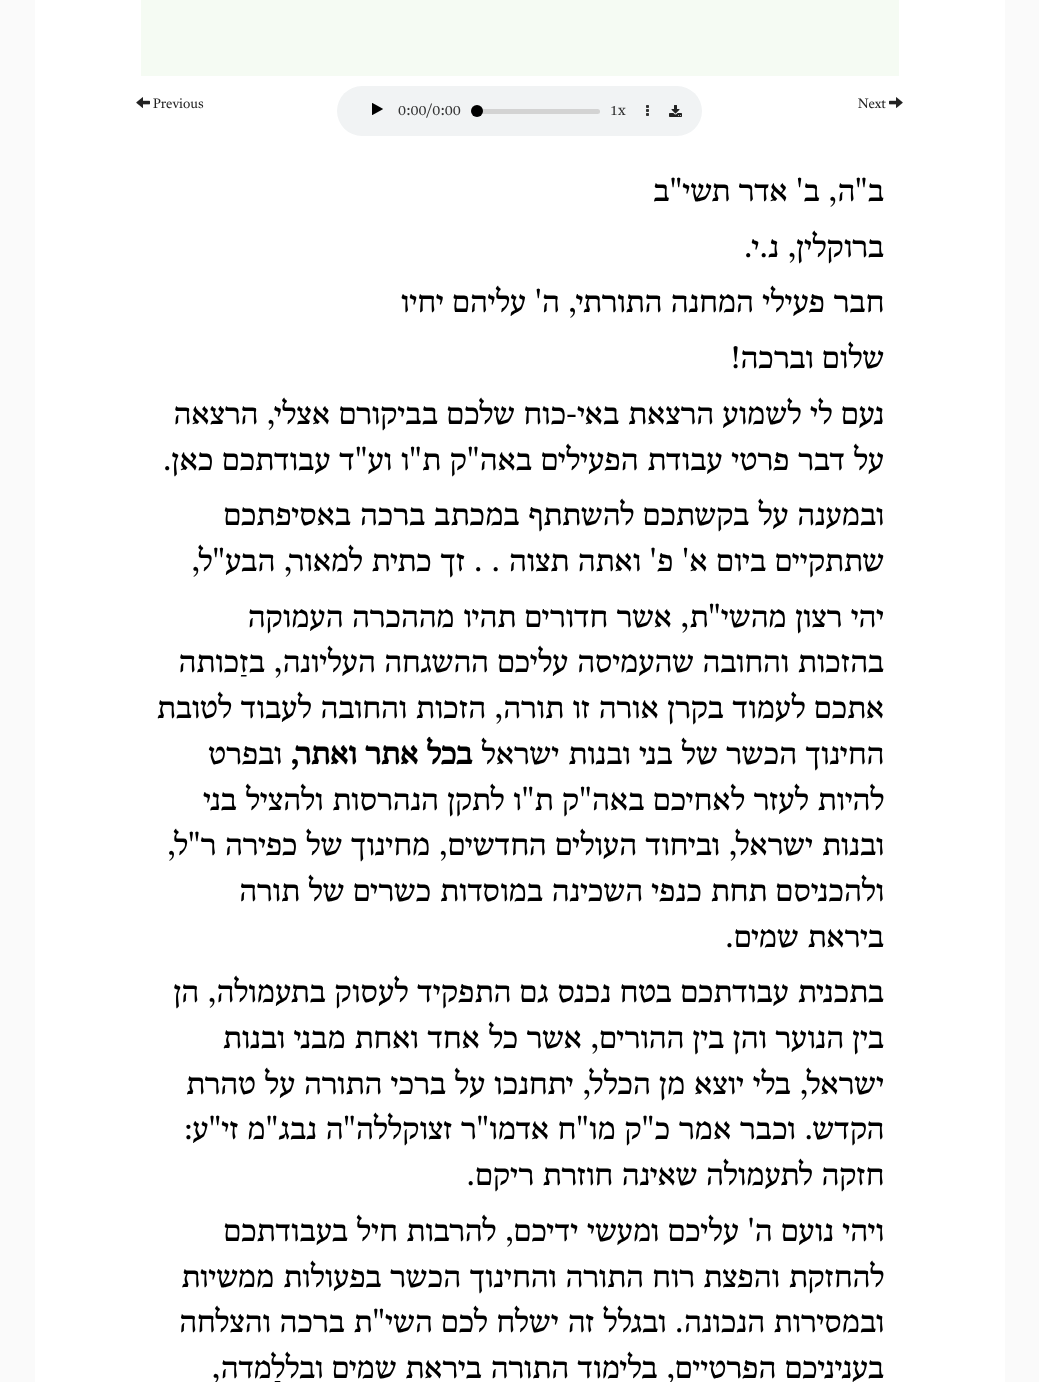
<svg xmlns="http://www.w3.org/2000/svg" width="1039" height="1382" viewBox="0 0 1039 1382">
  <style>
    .t1 { font: 14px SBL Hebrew; fill: #222; }
    .t2 { font: 16px SBL Hebrew; fill: #333; }
    .t3 { font: 32px SBL Hebrew; direction: rtl; fill: #000; }
    .t4 { font: bold 32px SBL Hebrew; direction: rtl; fill: #000; }
  </style>
  <rect width="100%" height="100%" fill="#fafafa"/>
  <rect x="35" y="0" width="970" height="1382" fill="#fff"/>
  <rect x="141" y="0" width="758" height="76" fill="#f5fbf3"/>
  <image x="889" y="97" width="14" height="11" href="images/1.png"/>
  <text x="858" y="108" class="t1">Next</text>
  <rect x="337" y="86" width="365" height="50" rx="25" fill="#f1f3f4"/>
  <image x="669" y="105" width="13" height="12" href="images/2.png"/>
  <image x="646" y="105" width="3" height="11" href="images/3.png"/>
  <text x="610" y="115" class="t2">1x</text>
  <rect x="471" y="109" width="129" height="5" rx="2.5" fill="#d3d3d3"/>
  <circle cx="477" cy="111" r="6" fill="#000"/>
  <text x="398" y="115" class="t2">0:00/0:00</text>
  <image x="372" y="103" width="11" height="12" href="images/4.png"/>
  <text x="153" y="108" class="t1">Previous</text>
  <image x="136" y="97" width="14" height="11" href="images/5.png"/>
  <text x="884" y="201" class="t3">ב"ה, ב' אדר תשי"ב</text>
  <text x="884" y="257" class="t3">ברוקלין, נ.י.</text>
  <text x="884" y="312" class="t3">חבר פעילי המחנה התורתי, ה' עליהם יחיו</text>
  <text x="884" y="368" class="t3">שלום וברכה!</text>
  <text x="884" y="424" class="t3">נעם לי לשמוע הרצאת באי-כוח שלכם בביקורם אצלי, הרצאה</text>
  <text x="884" y="470" class="t3">על דבר פרטי עבודת הפעילים באה"ק ת"ו וע"ד עבודתכם כאן.</text>
  <text x="884" y="525" class="t3">ובמענה על בקשתכם להשתתף במכתב ברכה באסיפתכם</text>
  <text x="884" y="571" class="t3">שתתקיים ביום א' פ' ואתה תצוה . . זך כתית למאור, הבע"ל,</text>
  <text x="884" y="627" class="t3">יהי רצון מהשי"ת, אשר חדורים תהיו מההכרה העמוקה</text>
  <text x="884" y="672" class="t3">בהזכות והחובה שהעמיסה עליכם ההשגחה העליונה, בזַכותה</text>
  <text x="884" y="718" class="t3">אתכם לעמוד בקרן אורה זו תורה, הזכות והחובה לעבוד לטובת</text>
  <text x="884" y="764" class="t3">החינוך הכשר של בני ובנות ישראל</text>
  <text x="472" y="764" class="t4">בכל אתר ואתר,</text>
  <text x="282" y="764" class="t3">ובפרט</text>
  <text x="884" y="810" class="t3">להיות לעזר לאחיכם באה"ק ת"ו לתקן הנהרסות ולהציל בני</text>
  <text x="884" y="855" class="t3">ובנות ישראל, וביחוד העולים החדשים, מחינוך של כפירה ר"ל,</text>
  <text x="884" y="901" class="t3">ולהכניסם תחת כנפי השכינה במוסדות כשרים של תורה</text>
  <text x="884" y="947" class="t3">ביראת שמים.</text>
  <text x="884" y="1002" class="t3">בתכנית עבודתכם בטח נכנס גם התפקיד לעסוק בתעמולה, הן</text>
  <text x="884" y="1048" class="t3">בין הנוער והן בין ההורים, אשר כל אחד ואחת מבני ובנות</text>
  <text x="884" y="1094" class="t3">ישראל, בלי יוצא מן הכלל, יתחנכו על ברכי התורה על טהרת</text>
  <text x="884" y="1139" class="t3">הקדש. וכבר אמר כ"ק מו"ח אדמו"ר זצוקללה"ה נבג"מ זי"ע:</text>
  <text x="884" y="1185" class="t3">חזקה לתעמולה שאינה חוזרת ריקם.</text>
  <text x="884" y="1241" class="t3">ויהי נועם ה' עליכם ומעשי ידיכם, להרבות חיל בעבודתכם</text>
  <text x="884" y="1287" class="t3">להחזקת והפצת רוח התורה והחינוך הכשר בפעולות ממשיות</text>
  <text x="884" y="1332" class="t3">ובמסירות הנכונה. ובגלל זה ישלח לכם השי"ת ברכה והצלחה</text>
  <text x="884" y="1378" class="t3">בעניניכם הפרטיים, בלימוד התורה ביראת שמים ובללַמדה,</text>
</svg>
